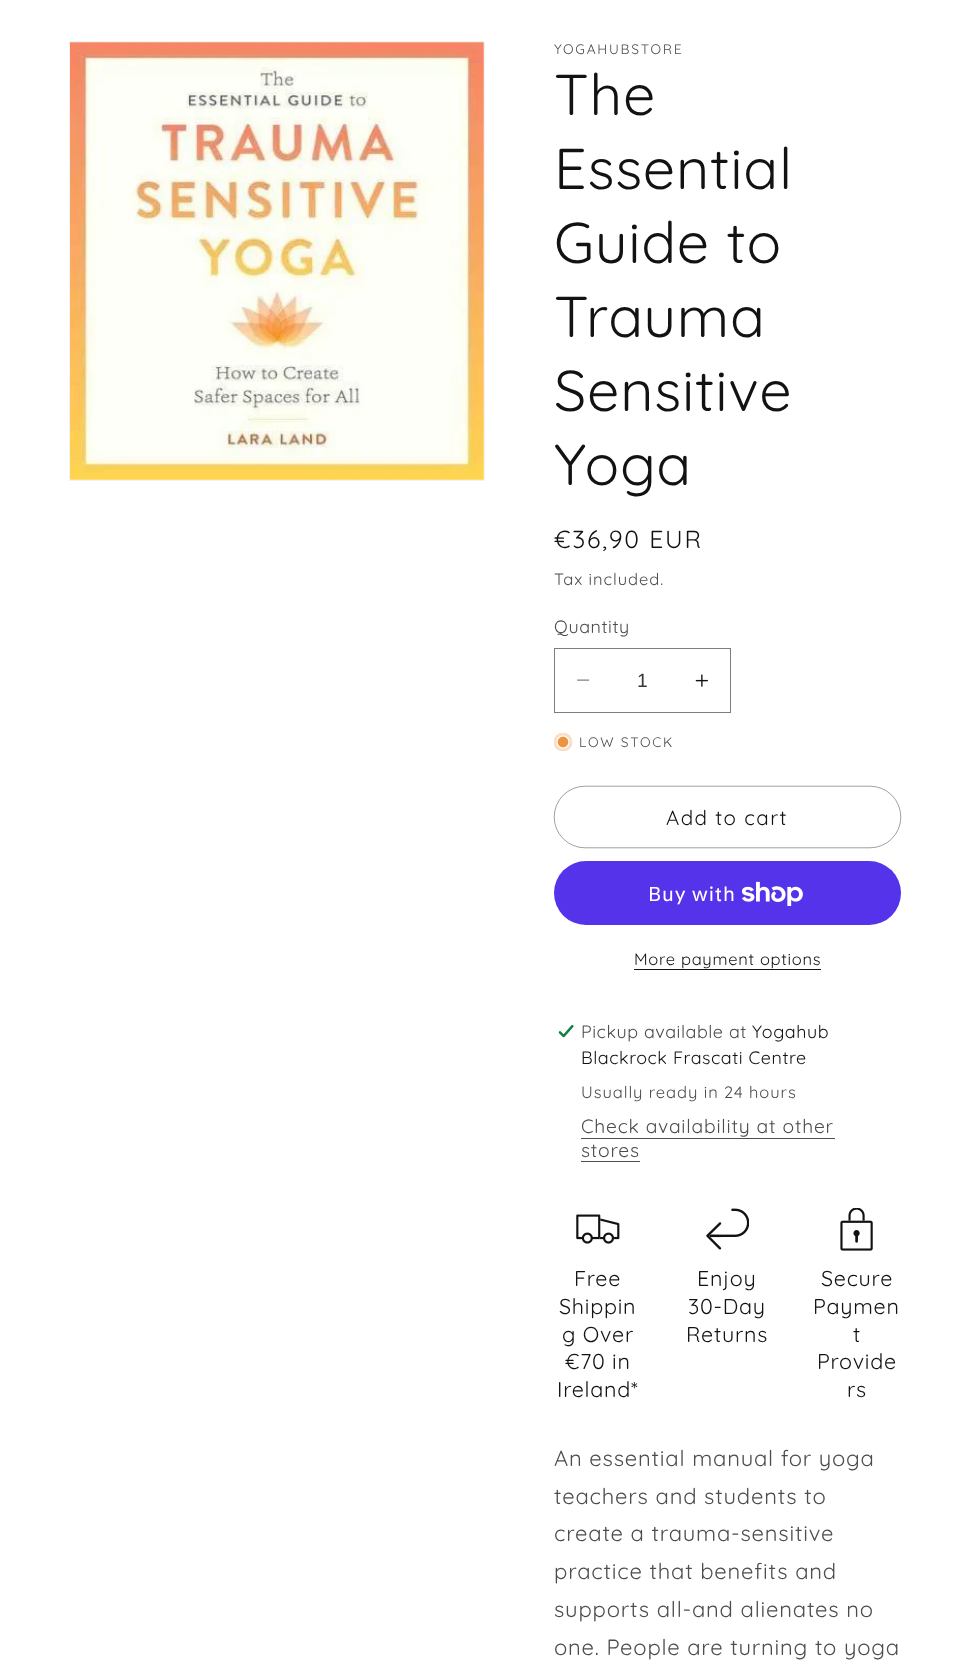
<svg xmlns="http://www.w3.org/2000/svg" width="970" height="1673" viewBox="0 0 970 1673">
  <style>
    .t1 { font: 300 13.75px Quicksand; letter-spacing: 1.75px; fill: #4d4d4d; }
    .t2 { font: 300 57.5px Quicksand; letter-spacing: 0.75px; fill: #121212; }
    .t3 { font: 300 24.75px Quicksand; letter-spacing: 1.75px; fill: #121212; }
    .t4 { font: 300 16.5px Quicksand; letter-spacing: 0.95px; fill: #4d4d4d; }
    .t5 { font: 300 17.9px Quicksand; letter-spacing: 0.55px; fill: #4d4d4d; }
    .t6 { font: 19.25px Liberation Sans; fill: #363636; }
    .t7 { font: 300 20.5px Quicksand; letter-spacing: 1.4px; fill: #121212; }
    .t8 { font: 20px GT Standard; letter-spacing: 0.8px; fill: #fff; }
    .t9 { font: 300 16.5px Quicksand; letter-spacing: 0.7px; fill: #121212; }
    .t10 { font: 300 17.9px Quicksand; letter-spacing: 0.55px; fill: #121212; }
    .t11 { font: 300 19.25px Quicksand; letter-spacing: 0.8px; fill: #4d4d4d; }
    .t12 { font: 300 21.5px Quicksand; letter-spacing: 0.75px; fill: #121212; }
    .t13 { font: 300 22px Quicksand; letter-spacing: 0.8px; fill: #4d4d4d; }
  </style>
  <defs>
    <clipPath id="clip1"><rect x="554" y="733" width="19" height="18"/></clipPath>
  </defs>
  <rect width="100%" height="100%" fill="#fff"/>
  <rect x="69.5" y="41.5" width="415" height="439" fill="none" stroke="#f3f3f3"/>
  <image x="70" y="42" width="414" height="438" href="images/1.png"/>
  <text x="554" y="54" class="t1">YOGAHUBSTORE</text>
  <text x="554" y="115" class="t2">The</text>
  <text x="554" y="189" class="t2">Essential</text>
  <text x="554" y="263" class="t2">Guide to</text>
  <text x="554" y="337" class="t2">Trauma</text>
  <text x="554" y="411" class="t2">Sensitive</text>
  <text x="554" y="485" class="t2">Yoga</text>
  <text x="554" y="548" class="t3">€36,90 EUR</text>
  <text x="554" y="585" class="t4">Tax included.</text>
  <text x="554" y="633" class="t5">Quantity</text>
  <image x="577" y="679" width="13" height="2" href="images/2.png"/>
  <image x="695" y="674" width="13" height="13" href="images/3.png"/>
  <rect x="554.5" y="648.5" width="176" height="64" fill="none" stroke="#7d7d7d"/>
  <text x="637" y="687" class="t6">1</text>
  <g clip-path="url(#clip1)">
    <circle cx="563" cy="742" r="9.5" fill="#fadfc6"/>
  </g>
  <circle cx="563" cy="742" r="6" fill="#ee9441" stroke="#fff" stroke-width="1.2"/>
  <text x="579" y="747" class="t1">LOW STOCK</text>
  <rect x="554.2" y="786.2" width="346.6" height="61.6" rx="30.8" fill="none" stroke="#121212" stroke-width="0.4"/>
  <text x="666" y="825" class="t7">Add to cart</text>
  <rect x="554" y="861" width="347" height="64" rx="32" fill="#5433eb"/>
  <text x="648" y="901" class="t8">Buy with</text>
  <image x="741" y="881" width="62" height="25" href="images/4.png"/>
  <text x="634" y="965" class="t9">More payment options</text>
  <rect x="634" y="969" width="187" height="1" fill="#121212"/>
  <image x="558" y="1024" width="17" height="14" href="images/5.png"/>
  <text x="581" y="1038" class="t5">Pickup available at</text>
  <text x="752" y="1038" class="t10">Yogahub</text>
  <text x="581" y="1064" class="t10">Blackrock Frascati Centre</text>
  <text x="581" y="1098" class="t4">Usually ready in 24 hours</text>
  <text x="581" y="1133" class="t11">Check availability at other</text>
  <rect x="581" y="1138" width="254" height="1" fill="#4d4d4d"/>
  <text x="581" y="1157" class="t11">stores</text>
  <rect x="581" y="1161" width="59" height="1" fill="#4d4d4d"/>
  <image x="576" y="1214" width="44" height="30" href="images/6.png"/>
  <text x="574" y="1286" class="t12">Free</text>
  <text x="559" y="1314" class="t12">Shippin</text>
  <text x="562" y="1342" class="t12">g Over</text>
  <text x="565" y="1369" class="t12">€70 in</text>
  <text x="557" y="1397" class="t12">Ireland*</text>
  <image x="706" y="1208" width="43" height="42" href="images/7.png"/>
  <text x="697" y="1286" class="t12">Enjoy</text>
  <text x="688" y="1314" class="t12">30-Day</text>
  <text x="686" y="1342" class="t12">Returns</text>
  <image x="840" y="1208" width="33" height="43" href="images/8.png"/>
  <text x="821" y="1286" class="t12">Secure</text>
  <text x="813" y="1314" class="t12">Paymen</text>
  <text x="853" y="1342" class="t12">t</text>
  <text x="817" y="1369" class="t12">Provide</text>
  <text x="847" y="1397" class="t12">rs</text>
  <text x="554" y="1466" class="t13">An essential manual for yoga</text>
  <text x="554" y="1504" class="t13">teachers and students to</text>
  <text x="554" y="1541" class="t13">create a trauma-sensitive</text>
  <text x="554" y="1579" class="t13">practice that benefits and</text>
  <text x="554" y="1617" class="t13">supports all-and alienates no</text>
  <text x="554" y="1655" class="t13">one. People are turning to yoga</text>
</svg>
